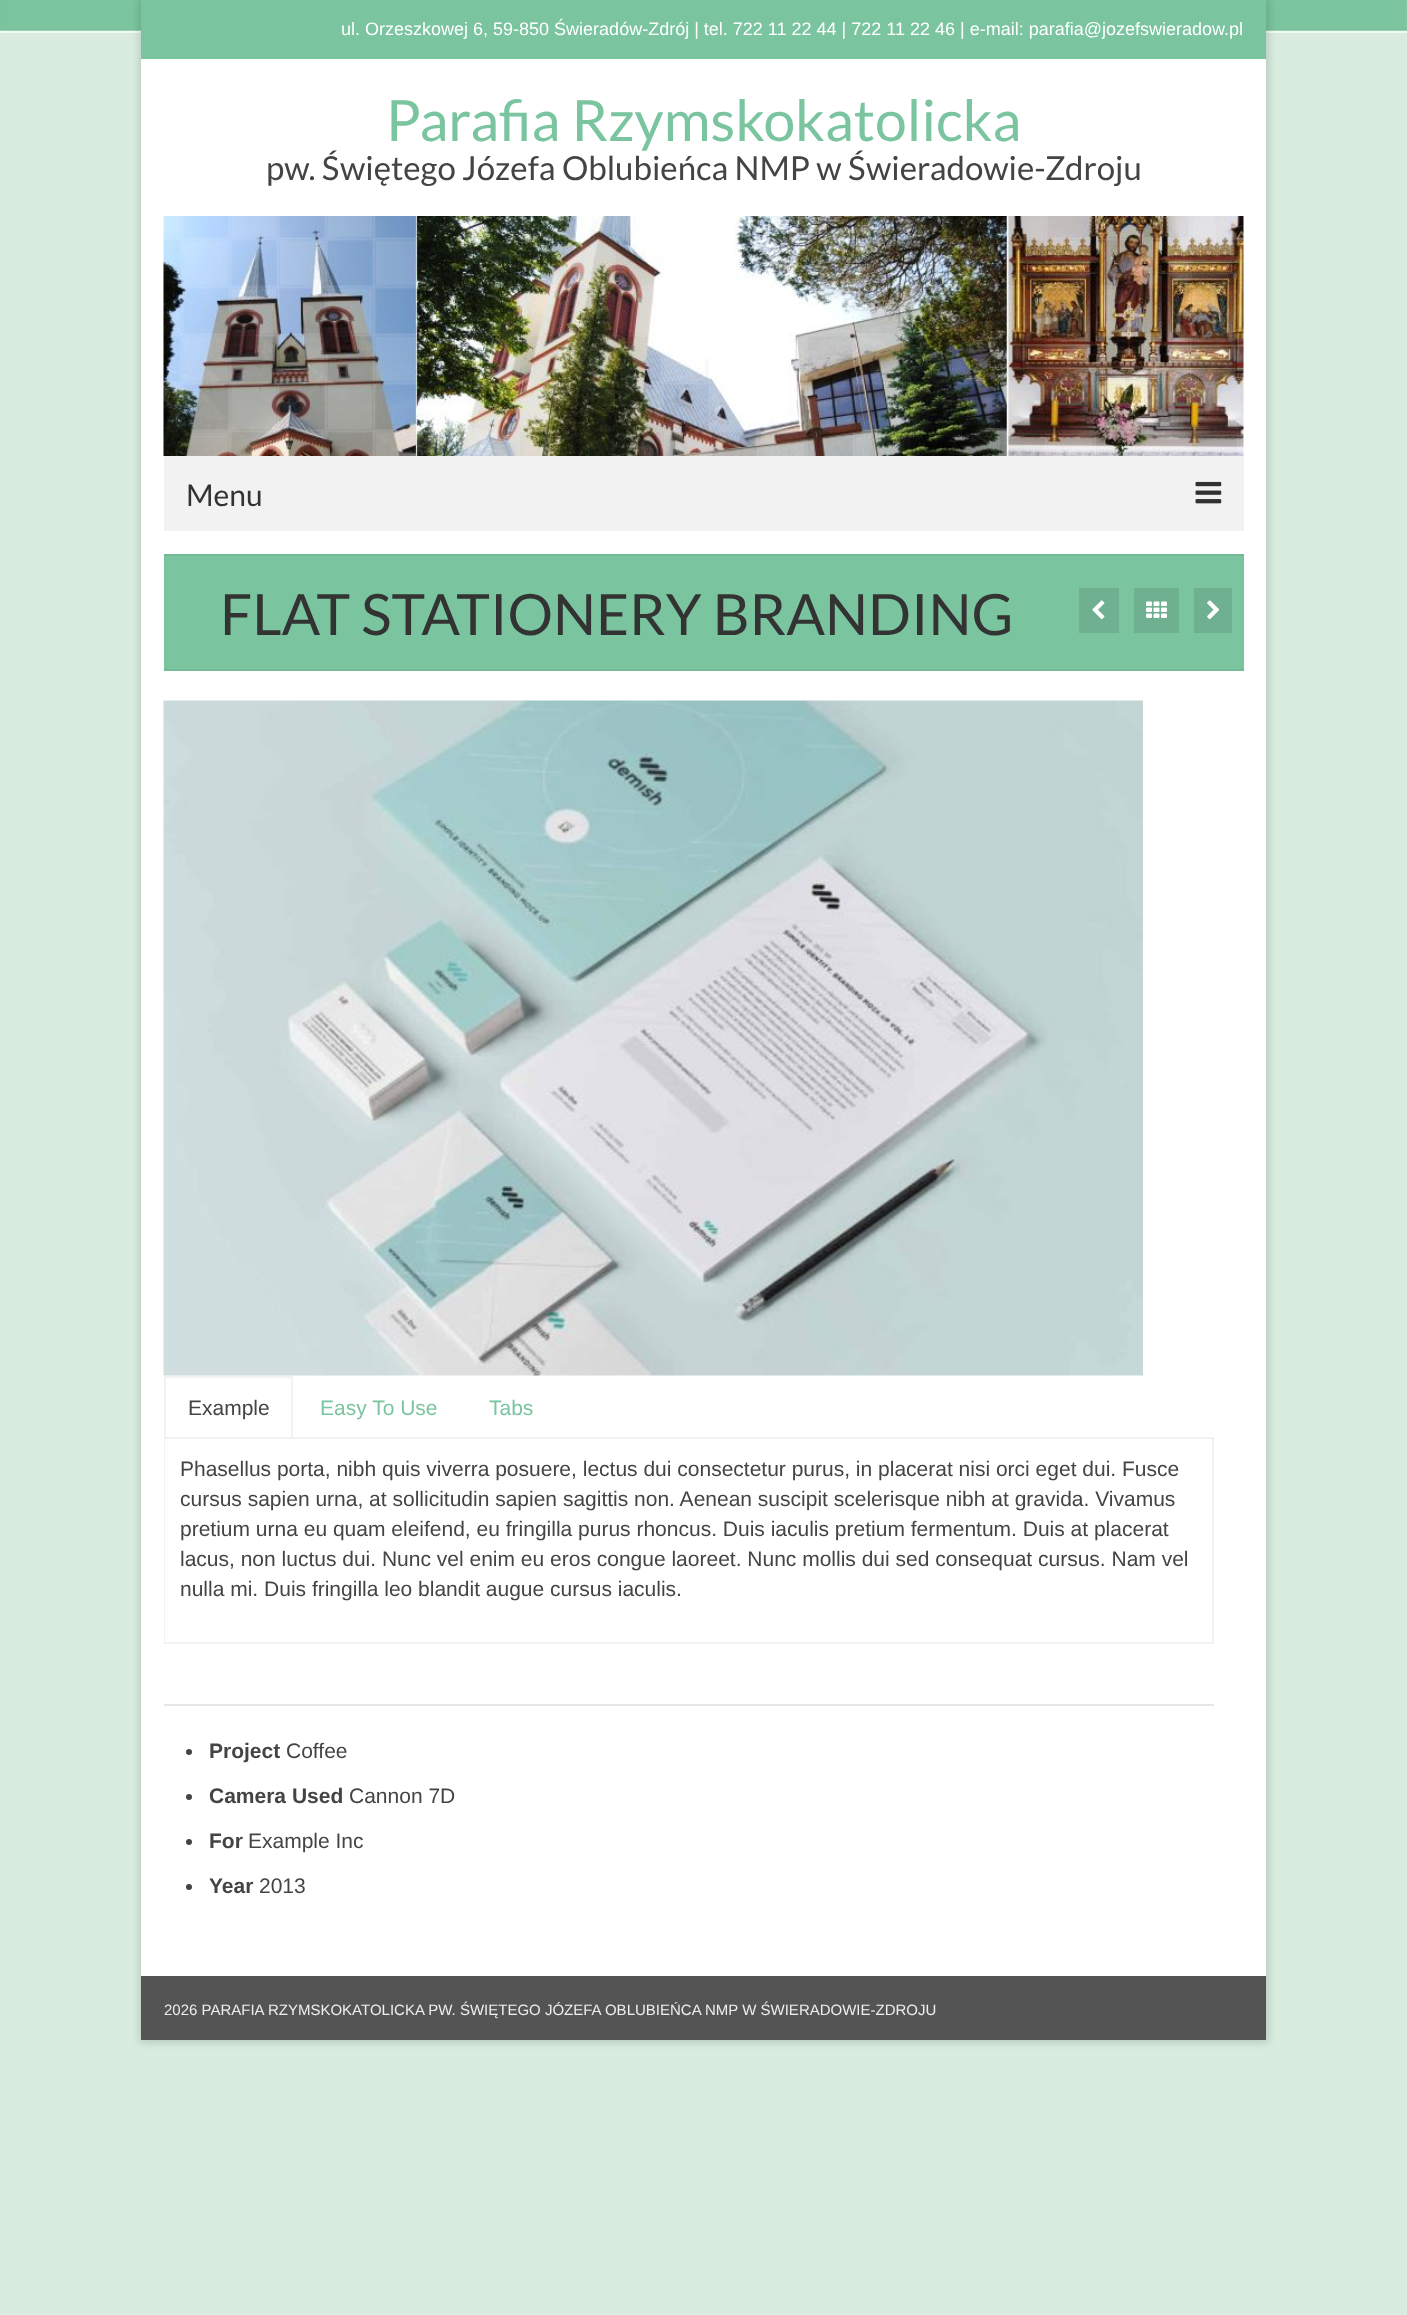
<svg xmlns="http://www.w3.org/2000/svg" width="1407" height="2315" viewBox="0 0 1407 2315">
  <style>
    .t1 { font: 18px Liberation Sans; fill: #fff; }
    .t2 { font: 57px Lato; fill: #7ac49f; }
    .t3 { font: 33px Lato; fill: #444; }
    .t4 { font: 30px Lato; fill: #333; }
    .t5 { font: 57px Lato; fill: #333; }
    .t6 { font: 21px Liberation Sans; fill: #444; }
    .t7 { font: 21px Liberation Sans; fill: #7ac49f; }
    .t8 { font: bold 21px Liberation Sans; fill: #444; }
    .t9 { font: 15px Liberation Sans; fill: #eee; }
  </style>
  <rect width="100%" height="100%" fill="#fff"/>
  <image x="0" y="0" width="1407" height="2315" href="images/1.png"/>
  <rect x="140" y="-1" width="1128" height="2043" fill="#00000029" filter="blur(4px)"/>
  <rect x="141" y="59" width="1125" height="1917" fill="#fff"/>
  <rect x="141" y="0" width="1125" height="59" fill="#7ac49f"/>
  <text x="341" y="35" class="t1">ul. Orzeszkowej 6, 59-850 Świeradów-Zdrój | tel. 722 11 22 44 | 722 11 22 46 | e-mail: parafia@jozefswieradow.pl</text>
  <text x="386" y="141" class="t2">Parafia Rzymskokatolicka</text>
  <text x="266" y="180" class="t3">pw. Świętego Józefa Oblubieńca NMP w Świeradowie-Zdroju</text>
  <image x="163" y="216" width="1081" height="240" href="images/2.png"/>
  <rect x="164" y="456" width="1080" height="75" fill="#f2f2f2"/>
  <text x="186" y="506" class="t4">Menu</text>
  <image x="1195" y="481" width="27" height="23" href="images/3.png"/>
  <rect x="164" y="556" width="1080" height="113" fill="#7ac49f"/>
  <rect x="164" y="554" width="1080" height="2" fill="#74ba97"/>
  <rect x="164" y="669" width="1080" height="2" fill="#74ba97"/>
  <text x="220" y="635" class="t5">FLAT STATIONERY BRANDING</text>
  <rect x="1079" y="588" width="40" height="45" fill="#6eb08f"/>
  <image x="1092" y="600" width="13" height="20" href="images/4.png"/>
  <rect x="1134" y="588" width="45" height="45" fill="#6eb08f"/>
  <image x="1146" y="601" width="21" height="17" href="images/5.png"/>
  <rect x="1194" y="588" width="38" height="45" fill="#6eb08f"/>
  <image x="1207" y="600" width="13" height="20" href="images/6.png"/>
  <image x="163" y="700" width="980" height="676" href="images/7.png"/>
  <rect x="293" y="1437" width="921" height="2" fill="#f2f2f2"/>
  <path d="M1214 1438V1644L1212 1642V1438Z" fill="#0000000d"/>
  <path d="M1214 1644H164L165 1642H1212Z" fill="#0000000d"/>
  <path d="M164 1644V1438H165V1642Z" fill="#0000000d"/>
  <rect x="165" y="1377" width="127" height="61" fill="none" stroke="#f2f2f2" stroke-width="2"/>
  <text x="188" y="1415" class="t6">Example</text>
  <text x="320" y="1415" class="t7">Easy To Use</text>
  <text x="489" y="1415" class="t7">Tabs</text>
  <text x="180" y="1476" class="t6">Phasellus porta, nibh quis viverra posuere, lectus dui consectetur purus, in placerat nisi orci eget dui. Fusce</text>
  <text x="180" y="1506" class="t6">cursus sapien urna, at sollicitudin sapien sagittis non. Aenean suscipit scelerisque nibh at gravida. Vivamus</text>
  <text x="180" y="1536" class="t6">pretium urna eu quam eleifend, eu fringilla purus rhoncus. Duis iaculis pretium fermentum. Duis at placerat</text>
  <text x="180" y="1566" class="t6">lacus, non luctus dui. Nunc vel enim eu eros congue laoreet. Nunc mollis dui sed consequat cursus. Nam vel</text>
  <text x="180" y="1596" class="t6">nulla mi. Duis fringilla leo blandit augue cursus iaculis.</text>
  <rect x="164" y="1704" width="1050" height="2" fill="#e6e6e6"/>
  <circle cx="189" cy="1752" r="3" fill="#444"/>
  <text x="209" y="1758" class="t8">Project</text>
  <text x="286" y="1758" class="t6">Coffee</text>
  <circle cx="189" cy="1797" r="3" fill="#444"/>
  <text x="209" y="1803" class="t8">Camera Used</text>
  <text x="349" y="1803" class="t6">Cannon 7D</text>
  <circle cx="189" cy="1842" r="3" fill="#444"/>
  <text x="209" y="1848" class="t8">For</text>
  <text x="248" y="1848" class="t6">Example Inc</text>
  <circle cx="189" cy="1887" r="3" fill="#444"/>
  <text x="209" y="1893" class="t8">Year</text>
  <text x="259" y="1893" class="t6">2013</text>
  <rect x="141" y="1976" width="1125" height="64" fill="#545454"/>
  <text x="164" y="2015" class="t9">2026 PARAFIA RZYMSKOKATOLICKA PW. ŚWIĘTEGO JÓZEFA OBLUBIEŃCA NMP W ŚWIERADOWIE-ZDROJU</text>
</svg>
